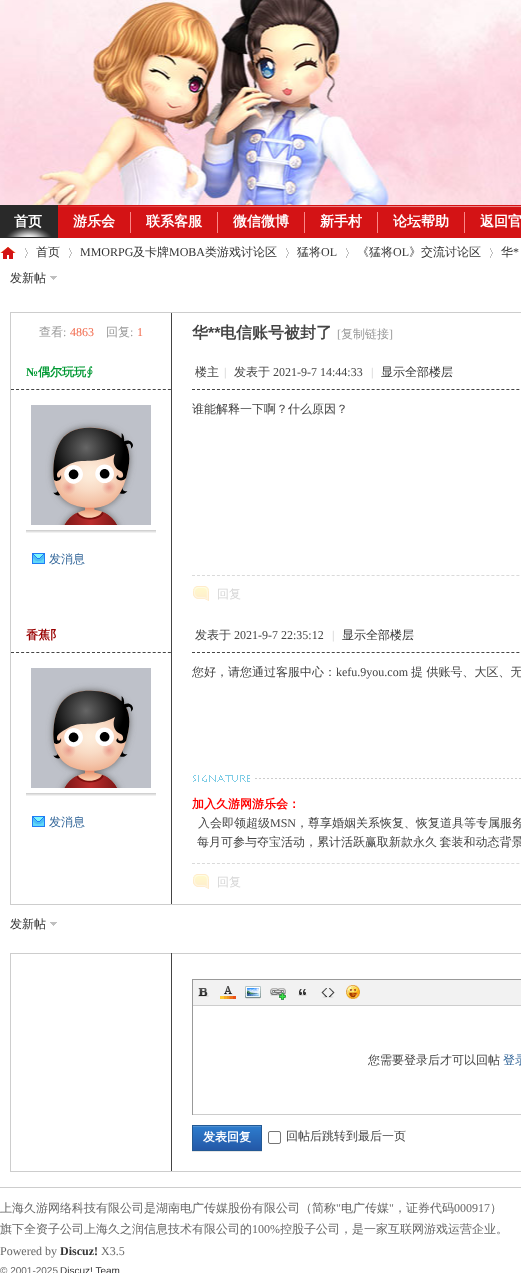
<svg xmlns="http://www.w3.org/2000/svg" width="521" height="1273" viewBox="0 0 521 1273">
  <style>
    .t1 { font: bold 14px WenQuanYi Zen Hei; fill: #fff; }
    .t2 { font: 500 12px WenQuanYi Zen Hei; fill: #333; }
    .t3 { font: 12px Liberation Serif; fill: #333; }
    .t4 { font: 500 12px WenQuanYi Zen Hei; fill: #999; }
    .t5 { font: 12px Liberation Serif; fill: #999; }
    .t6 { font: 12px Liberation Serif; fill: #f26c4f; }
    .t7 { font: bold 16px WenQuanYi Zen Hei; fill: #444; }
    .t8 { font: bold 16px Liberation Sans; fill: #444; }
    .t9 { font: bold 12px Liberation Serif; fill: #093; }
    .t10 { font: bold 12px WenQuanYi Zen Hei; fill: #093; }
    .t11 { font: 500 12px WenQuanYi Zen Hei; fill: #369; }
    .t12 { font: 500 12px WenQuanYi Zen Hei; fill: #444; }
    .t13 { font: 12px Liberation Serif; fill: #ccc; }
    .t14 { font: 12px Liberation Serif; fill: #444; }
    .t15 { font: 500 12px WenQuanYi Zen Hei; fill: #d6d6d6; }
    .t16 { font: bold 12px WenQuanYi Zen Hei; fill: #900; }
    .t17 { font: bold 12px WenQuanYi Zen Hei; fill: #f00; }
    .t18 { font: bold 12px WenQuanYi Zen Hei; fill: #fff; }
    .t19 { font: 500 12px WenQuanYi Zen Hei; fill: #666; }
    .t20 { font: 12px Liberation Serif; fill: #666; }
    .t21 { font: bold 12px Liberation Serif; fill: #333; }
    .t22 { font: 10px Liberation Sans; fill: #666; }
    .t23 { font: 10px Liberation Sans; fill: #333; }
  </style>
  <rect width="100%" height="100%" fill="#fff"/>
  <image x="0" y="0" width="521" height="205" href="images/1.png"/>
  <image x="58" y="205" width="463" height="33" href="images/2.png"/>
  <image x="0" y="205" width="58" height="33" href="images/3.png"/>
  <text x="14" y="226" class="t1">首页</text>
  <rect x="130" y="212" width="1" height="21" fill="#fb8787"/>
  <text x="73" y="226" class="t1">游乐会</text>
  <rect x="217" y="212" width="1" height="21" fill="#fb8787"/>
  <text x="146" y="226" class="t1">联系客服</text>
  <rect x="304" y="212" width="1" height="21" fill="#fb8787"/>
  <text x="233" y="226" class="t1">微信微博</text>
  <rect x="377" y="212" width="1" height="21" fill="#fb8787"/>
  <text x="320" y="226" class="t1">新手村</text>
  <rect x="464" y="212" width="1" height="21" fill="#fb8787"/>
  <text x="393" y="226" class="t1">论坛帮助</text>
  <text x="480" y="226" class="t1">返回官</text>
  <image x="0" y="247" width="16" height="12" href="images/4.png"/>
  <image x="25" y="248" width="3" height="10" href="images/5.png"/>
  <text x="36" y="256" class="t2">首页</text>
  <image x="69" y="248" width="3" height="10" href="images/5.png"/>
  <text x="80" y="256" class="t3">MMORPG</text>
  <text x="133" y="256" class="t2">及卡牌</text>
  <text x="169" y="256" class="t3">MOBA</text>
  <text x="205" y="256" class="t2">类游戏讨论区</text>
  <image x="286" y="248" width="3" height="10" href="images/5.png"/>
  <text x="297" y="256" class="t2">猛将</text>
  <text x="321" y="256" class="t3">OL</text>
  <image x="346" y="248" width="3" height="10" href="images/5.png"/>
  <text x="357" y="256" class="t2">《猛将</text>
  <text x="393" y="256" class="t3">OL</text>
  <text x="409" y="256" class="t2">》交流讨论区</text>
  <image x="490" y="248" width="3" height="10" href="images/5.png"/>
  <text x="501" y="256" class="t2">华</text>
  <text x="513" y="256" class="t3">*</text>
  <image x="50" y="276" width="7" height="4" href="images/6.png"/>
  <text x="10" y="282" class="t2">发新帖</text>
  <rect x="10.5" y="312.5" width="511" height="592" fill="none" stroke="#cdcdcd"/>
  <rect x="171" y="313" width="1" height="41" fill="#444"/>
  <text x="39" y="336" class="t4">查看</text>
  <text x="63" y="336" class="t5">:</text>
  <text x="70" y="336" class="t6">4863</text>
  <text x="106" y="336" class="t4">回复</text>
  <text x="130" y="336" class="t5">:</text>
  <text x="137" y="336" class="t6">1</text>
  <text x="192" y="338" class="t7">华</text>
  <text x="208" y="338" class="t8">**</text>
  <text x="220" y="338" class="t7">电信账号被封了</text>
  <text x="337" y="338" class="t5">[</text>
  <text x="341" y="338" class="t4">复制链接</text>
  <text x="389" y="338" class="t5">]</text>
  <rect x="171" y="353" width="1" height="264" fill="#444"/>
  <path d="M11 389.5H171" fill="none" stroke="#444" stroke-dasharray="3 2.06"/>
  <text x="26" y="376" class="t9">№</text>
  <text x="38" y="376" class="t10">偶尔玩玩∮</text>
  <image x="26" y="405" width="130" height="128" href="images/7.png"/>
  <image x="32" y="553" width="13" height="11" href="images/8.png"/>
  <text x="49" y="563" class="t11">发消息</text>
  <path d="M192 389.5H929" fill="none" stroke="#444" stroke-dasharray="3 1.99"/>
  <text x="195" y="376" class="t12">楼主</text>
  <text x="224" y="376" class="t13">|</text>
  <text x="234" y="376" class="t12">发表于</text>
  <text x="273" y="376" class="t14">2021-9-7 14:44:33</text>
  <text x="371" y="376" class="t13">|</text>
  <text x="381" y="376" class="t2">显示全部楼层</text>
  <text x="192" y="413" class="t12">谁能解释一下啊？什么原因？</text>
  <path d="M192 575.5H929" fill="none" stroke="#dadada" stroke-dasharray="3 1.99"/>
  <image x="193" y="586" width="16" height="15" href="images/9.png"/>
  <text x="217" y="598" class="t15">回复</text>
  <rect x="171" y="616" width="1" height="288" fill="#444"/>
  <path d="M11 652.5H171" fill="none" stroke="#444" stroke-dasharray="3 2.06"/>
  <text x="26" y="639" class="t16">香蕉阝</text>
  <image x="26" y="668" width="130" height="128" href="images/10.png"/>
  <image x="32" y="816" width="13" height="11" href="images/8.png"/>
  <text x="49" y="826" class="t11">发消息</text>
  <path d="M192 652.5H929" fill="none" stroke="#444" stroke-dasharray="3 1.99"/>
  <text x="195" y="639" class="t12">发表于</text>
  <text x="234" y="639" class="t14">2021-9-7 22:35:12</text>
  <text x="332" y="639" class="t13">|</text>
  <text x="342" y="639" class="t2">显示全部楼层</text>
  <text x="192" y="676" class="t12">您好，请您通过客服中心：</text>
  <text x="336" y="676" class="t14">kefu.9you.com</text>
  <text x="411" y="676" class="t12">提 供账号、大区、无</text>
  <image x="193" y="775" width="328" height="7" href="images/11.png"/>
  <text x="192" y="808" class="t17">加入久游网游乐会：</text>
  <text x="198" y="827" class="t12">入会即领超级</text>
  <text x="270" y="827" class="t14">MSN</text>
  <text x="296" y="827" class="t12">，尊享婚姻关系恢复、恢复道具等专属服务</text>
  <text x="197" y="846" word-spacing="-1" class="t12">每月可参与夺宝活动，累计活跃赢取新款永久 套装和动态背景</text>
  <path d="M192 863.5H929" fill="none" stroke="#dadada" stroke-dasharray="3 1.99"/>
  <image x="193" y="874" width="16" height="15" href="images/9.png"/>
  <text x="217" y="886" class="t15">回复</text>
  <image x="50" y="922" width="7" height="4" href="images/6.png"/>
  <text x="10" y="928" class="t2">发新帖</text>
  <rect x="10.5" y="953.5" width="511" height="218" fill="none" stroke="#cdcdcd"/>
  <rect x="171" y="953" width="1" height="218" fill="#444"/>
  <rect x="192" y="979" width="329" height="1" fill="#999"/>
  <rect x="192" y="1114" width="329" height="1" fill="#ccc"/>
  <rect x="192" y="979" width="1" height="136" fill="#999"/>
  <rect x="193" y="980" width="328" height="25" fill="#f2f2f2"/>
  <rect x="193" y="1005" width="328" height="1" fill="#cdcdcd"/>
  <image x="198" y="988" width="11" height="9" href="images/12.png"/>
  <image x="220" y="986" width="16" height="13" href="images/13.png"/>
  <image x="245" y="986" width="16" height="13" href="images/14.png"/>
  <image x="270" y="988" width="17" height="12" href="images/15.png"/>
  <image x="298" y="989" width="9" height="7" href="images/16.png"/>
  <image x="321" y="988" width="14" height="10" href="images/17.png"/>
  <image x="345" y="985" width="15" height="14" href="images/18.png"/>
  <text x="368" y="1064" class="t12">您需要登录后才可以回帖</text>
  <text x="503" y="1064" class="t11">登录</text>
  <rect x="192" y="1151" width="70" height="1" fill="#e5e5e5"/>
  <image x="193" y="1126" width="68" height="24" href="images/19.png"/>
  <rect x="192.5" y="1125.5" width="69" height="25" fill="none" stroke="#235994"/>
  <text x="203" y="1141" class="t18">发表回复</text>
  <rect x="268.5" y="1131.5" width="12" height="12" rx="1.5" fill="none" stroke="#767676"/>
  <text x="286" y="1140" class="t12">回帖后跳转到最后一页</text>
  <rect x="0" y="1187" width="521" height="1" fill="#cdcdcd"/>
  <text x="0" y="1212" class="t19">上海久游网络科技有限公司是湖南电广传媒股份有限公司（简称</text>
  <text x="336" y="1212" class="t20">"</text>
  <text x="341" y="1212" class="t19">电广传媒</text>
  <text x="389" y="1212" class="t20">"</text>
  <text x="394" y="1212" class="t19">，证券代码</text>
  <text x="454" y="1212" class="t20">000917</text>
  <text x="490" y="1212" class="t19">）</text>
  <text x="0" y="1233" class="t19">旗下全资子公司上海久之润信息技术有限公司的</text>
  <text x="252" y="1233" class="t20">100%</text>
  <text x="280" y="1233" class="t19">控股子公司，是一家互联网游戏运营企业。</text>
  <text x="0" y="1255" class="t20">Powered by</text>
  <text x="60" y="1255" class="t21">Discuz!</text>
  <text x="101" y="1255" class="t20">X3.5</text>
  <text x="0" y="1274" class="t22">© 2001-2025</text>
  <text x="60" y="1274" class="t23">Discuz! Team</text>
</svg>
